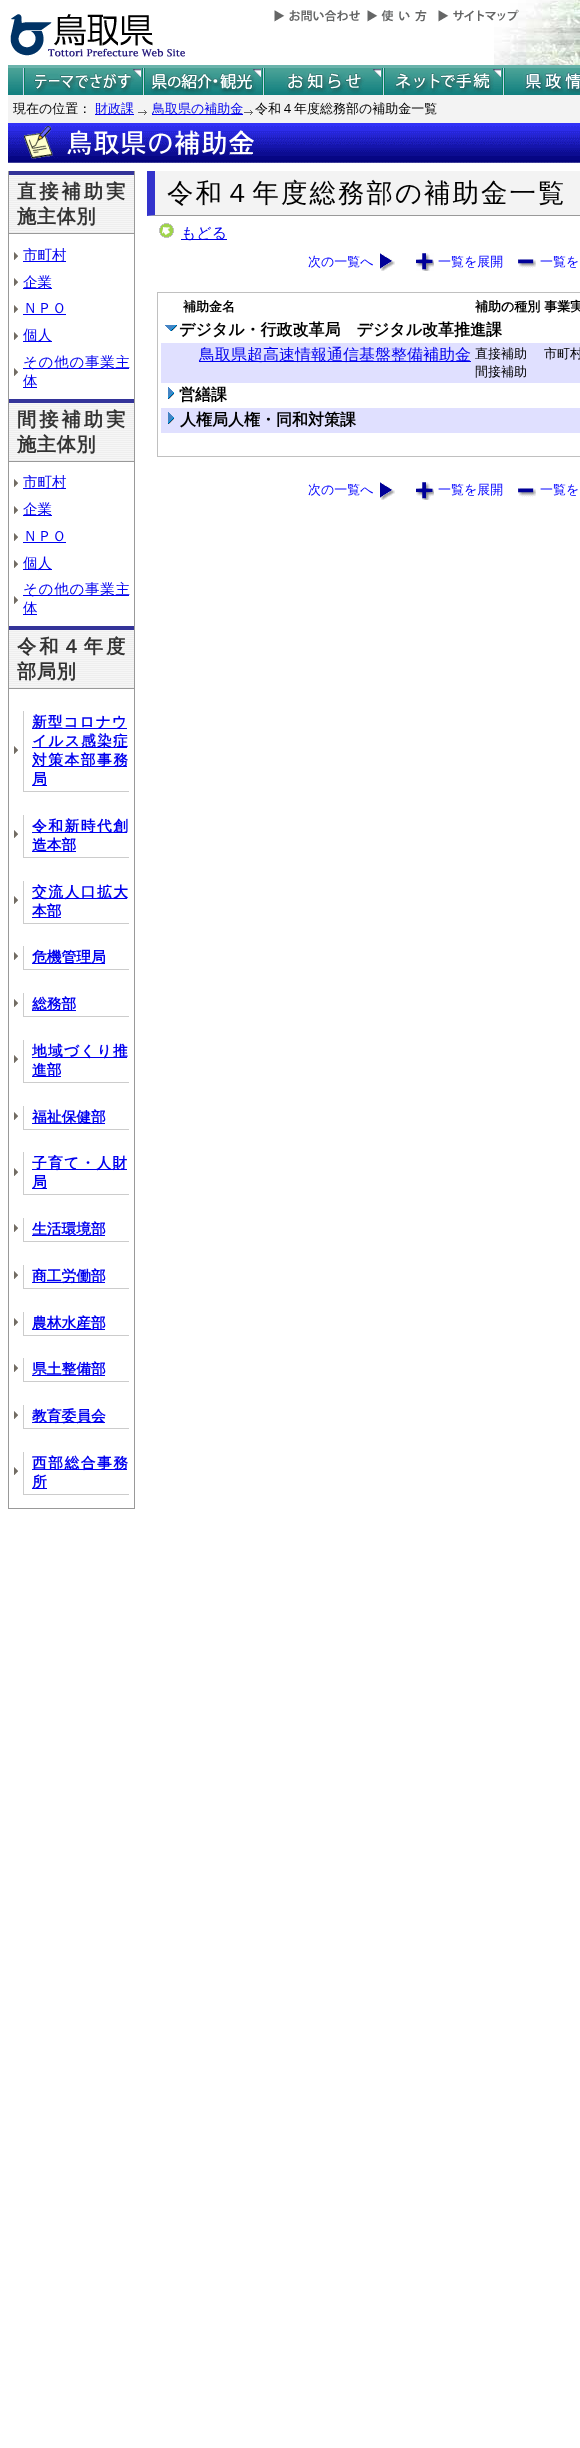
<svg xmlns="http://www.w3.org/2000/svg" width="580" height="2448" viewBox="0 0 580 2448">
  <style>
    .t1 { font: 500 13px WenQuanYi Zen Hei; fill: #000; }
    .t2 { font: 500 13px WenQuanYi Zen Hei; fill: #00e; }
    .t3 { font: bold 19.25px WenQuanYi Zen Hei; letter-spacing: 3px; fill: #333; }
    .t4 { font: bold 19.25px WenQuanYi Zen Hei; letter-spacing: 0.5px; fill: #333; }
    .t5 { font: 500 14.5px WenQuanYi Zen Hei; fill: #00e; }
    .t6 { font: 500 14.5px WenQuanYi Zen Hei; letter-spacing: 0.75px; fill: #00e; }
    .t7 { font: bold 14.75px WenQuanYi Zen Hei; letter-spacing: 1px; fill: #00e; }
    .t8 { font: bold 14.75px WenQuanYi Zen Hei; letter-spacing: 1.25px; fill: #00e; }
    .t9 { font: bold 14.75px WenQuanYi Zen Hei; letter-spacing: 1.5px; fill: #00e; }
    .t10 { font: bold 14.75px WenQuanYi Zen Hei; fill: #00e; }
    .t11 { font: 500 26.4px WenQuanYi Zen Hei; letter-spacing: 2.1px; fill: #000; }
    .t12 { font: 500 15px WenQuanYi Zen Hei; fill: #00e; }
    .t13 { font: 500 13px WenQuanYi Zen Hei; fill: #00f; }
    .t14 { font: bold 13px WenQuanYi Zen Hei; fill: #000; }
    .t15 { font: bold 16px WenQuanYi Zen Hei; fill: #000; }
    .t16 { font: 500 16px WenQuanYi Zen Hei; fill: #00e; }
  </style>
  <rect width="100%" height="100%" fill="#fff"/>
  <image x="494" y="0" width="86" height="65" href="images/1.png"/>
  <image x="10" y="14" width="175" height="43" href="images/2.png"/>
  <image x="274" y="10" width="86" height="12" href="images/3.png"/>
  <image x="367" y="10" width="60" height="12" href="images/4.png"/>
  <image x="438" y="9" width="81" height="13" href="images/5.png"/>
  <rect x="8" y="65" width="572" height="3" fill="#6ab3ab"/>
  <image x="8" y="68" width="15" height="27" href="images/6.png"/>
  <image x="23" y="68" width="120" height="27" href="images/7.png"/>
  <image x="143" y="68" width="120" height="27" href="images/8.png"/>
  <image x="263" y="68" width="120" height="27" href="images/9.png"/>
  <image x="383" y="68" width="120" height="27" href="images/10.png"/>
  <image x="503" y="68" width="77" height="27" href="images/11.png"/>
  <rect x="8" y="95" width="572" height="28" fill="#f3f3f3"/>
  <text x="13" y="113" class="t1">現在の位置：</text>
  <rect x="95" y="114" width="39" height="1" fill="#00e"/>
  <text x="95" y="113" class="t2">財政課</text>
  <image x="138" y="110" width="9" height="5" href="images/12.png"/>
  <rect x="152" y="114" width="91" height="1" fill="#00e"/>
  <text x="152" y="113" class="t2">鳥取県の補助金</text>
  <image x="244" y="110" width="9" height="5" href="images/12.png"/>
  <text x="255" y="113" class="t1">令和４年度総務部の補助金一覧</text>
  <image x="8" y="123" width="572" height="40" href="images/13.png"/>
  <rect x="134" y="171" width="1" height="1338" fill="#999"/>
  <rect x="8" y="1508" width="127" height="1" fill="#999"/>
  <rect x="8" y="171" width="1" height="1338" fill="#999"/>
  <image x="9" y="175" width="125" height="58" href="images/14.png"/>
  <rect x="9" y="171" width="125" height="4" fill="#339"/>
  <rect x="9" y="233" width="125" height="1" fill="#999"/>
  <text x="17" y="198" class="t3">直接補助実</text>
  <text x="17" y="223" class="t4">施主体別</text>
  <image x="14" y="252" width="4" height="8" href="images/15.png"/>
  <rect x="23" y="261" width="43" height="1" fill="#00e"/>
  <text x="23" y="260" class="t5">市町村</text>
  <image x="14" y="278" width="4" height="8" href="images/15.png"/>
  <rect x="23" y="288" width="29" height="1" fill="#00e"/>
  <text x="23" y="287" class="t5">企業</text>
  <image x="14" y="305" width="4" height="8" href="images/15.png"/>
  <text x="23" y="313" class="t5">ＮＰＯ</text>
  <rect x="23" y="314" width="43" height="1" fill="#00e"/>
  <image x="14" y="332" width="4" height="8" href="images/15.png"/>
  <rect x="23" y="341" width="29" height="1" fill="#00e"/>
  <text x="23" y="340" class="t5">個人</text>
  <image x="14" y="368" width="4" height="8" href="images/15.png"/>
  <rect x="23" y="368" width="106" height="1" fill="#00e"/>
  <text x="23" y="367" class="t6">その他の事業主</text>
  <rect x="23" y="387" width="14" height="1" fill="#00e"/>
  <text x="23" y="386" class="t5">体</text>
  <image x="9" y="403" width="125" height="58" href="images/14.png"/>
  <rect x="9" y="399" width="125" height="4" fill="#339"/>
  <rect x="9" y="461" width="125" height="1" fill="#999"/>
  <text x="17" y="426" class="t3">間接補助実</text>
  <text x="17" y="451" class="t4">施主体別</text>
  <image x="14" y="479" width="4" height="8" href="images/15.png"/>
  <rect x="23" y="488" width="43" height="1" fill="#00e"/>
  <text x="23" y="487" class="t5">市町村</text>
  <image x="14" y="506" width="4" height="8" href="images/15.png"/>
  <rect x="23" y="515" width="29" height="1" fill="#00e"/>
  <text x="23" y="514" class="t5">企業</text>
  <image x="14" y="533" width="4" height="8" href="images/15.png"/>
  <text x="23" y="541" class="t5">ＮＰＯ</text>
  <rect x="23" y="542" width="43" height="1" fill="#00e"/>
  <image x="14" y="560" width="4" height="8" href="images/15.png"/>
  <rect x="23" y="569" width="29" height="1" fill="#00e"/>
  <text x="23" y="568" class="t5">個人</text>
  <image x="14" y="596" width="4" height="8" href="images/15.png"/>
  <rect x="23" y="595" width="106" height="1" fill="#00e"/>
  <text x="23" y="594" class="t6">その他の事業主</text>
  <rect x="23" y="614" width="14" height="1" fill="#00e"/>
  <text x="23" y="613" class="t5">体</text>
  <image x="9" y="630" width="125" height="58" href="images/14.png"/>
  <rect x="9" y="626" width="125" height="4" fill="#339"/>
  <rect x="9" y="688" width="125" height="1" fill="#999"/>
  <text x="17" y="653" class="t3">令和４年度</text>
  <text x="17" y="678" class="t4">部局別</text>
  <image x="14" y="746" width="4" height="8" href="images/15.png"/>
  <rect x="23" y="791" width="106" height="1" fill="#ccc"/>
  <rect x="23" y="711" width="1" height="81" fill="#ccc"/>
  <rect x="32" y="728" width="95" height="1" fill="#00e"/>
  <text x="32" y="727" class="t7">新型コロナウ</text>
  <rect x="32" y="747" width="95" height="1" fill="#00e"/>
  <text x="32" y="746" class="t8">イルス感染症</text>
  <rect x="32" y="766" width="95" height="1" fill="#00e"/>
  <text x="32" y="765" class="t9">対策本部事務</text>
  <rect x="32" y="785" width="15" height="1" fill="#00e"/>
  <text x="32" y="784" class="t10">局</text>
  <image x="14" y="830" width="4" height="8" href="images/15.png"/>
  <rect x="23" y="857" width="106" height="1" fill="#ccc"/>
  <rect x="23" y="815" width="1" height="43" fill="#ccc"/>
  <rect x="32" y="832" width="95" height="1" fill="#00e"/>
  <text x="32" y="831" class="t9">令和新時代創</text>
  <rect x="32" y="851" width="44" height="1" fill="#00e"/>
  <text x="32" y="850" class="t10">造本部</text>
  <image x="14" y="896" width="4" height="8" href="images/15.png"/>
  <rect x="23" y="923" width="106" height="1" fill="#ccc"/>
  <rect x="23" y="881" width="1" height="43" fill="#ccc"/>
  <rect x="32" y="898" width="95" height="1" fill="#00e"/>
  <text x="32" y="897" class="t9">交流人口拡大</text>
  <rect x="32" y="917" width="29" height="1" fill="#00e"/>
  <text x="32" y="916" class="t10">本部</text>
  <image x="14" y="952" width="4" height="8" href="images/15.png"/>
  <rect x="23" y="969" width="106" height="1" fill="#ccc"/>
  <rect x="23" y="946" width="1" height="24" fill="#ccc"/>
  <rect x="32" y="963" width="73" height="1" fill="#00e"/>
  <text x="32" y="962" class="t10">危機管理局</text>
  <image x="14" y="999" width="4" height="8" href="images/15.png"/>
  <rect x="23" y="1016" width="106" height="1" fill="#ccc"/>
  <rect x="23" y="993" width="1" height="24" fill="#ccc"/>
  <rect x="32" y="1010" width="44" height="1" fill="#00e"/>
  <text x="32" y="1009" class="t10">総務部</text>
  <image x="14" y="1055" width="4" height="8" href="images/15.png"/>
  <rect x="23" y="1082" width="106" height="1" fill="#ccc"/>
  <rect x="23" y="1040" width="1" height="43" fill="#ccc"/>
  <rect x="32" y="1057" width="95" height="1" fill="#00e"/>
  <text x="32" y="1056" class="t8">地域づくり推</text>
  <rect x="32" y="1076" width="29" height="1" fill="#00e"/>
  <text x="32" y="1075" class="t10">進部</text>
  <image x="14" y="1112" width="4" height="8" href="images/15.png"/>
  <rect x="23" y="1129" width="106" height="1" fill="#ccc"/>
  <rect x="23" y="1106" width="1" height="24" fill="#ccc"/>
  <rect x="32" y="1123" width="73" height="1" fill="#00e"/>
  <text x="32" y="1122" class="t10">福祉保健部</text>
  <image x="14" y="1168" width="4" height="8" href="images/15.png"/>
  <rect x="23" y="1194" width="106" height="1" fill="#ccc"/>
  <rect x="23" y="1152" width="1" height="43" fill="#ccc"/>
  <rect x="32" y="1169" width="95" height="1" fill="#00e"/>
  <text x="32" y="1168" class="t8">子育て・人財</text>
  <rect x="32" y="1188" width="15" height="1" fill="#00e"/>
  <text x="32" y="1187" class="t10">局</text>
  <image x="14" y="1224" width="4" height="8" href="images/15.png"/>
  <rect x="23" y="1241" width="106" height="1" fill="#ccc"/>
  <rect x="23" y="1218" width="1" height="24" fill="#ccc"/>
  <rect x="32" y="1235" width="73" height="1" fill="#00e"/>
  <text x="32" y="1234" class="t10">生活環境部</text>
  <image x="14" y="1271" width="4" height="8" href="images/15.png"/>
  <rect x="23" y="1288" width="106" height="1" fill="#ccc"/>
  <rect x="23" y="1265" width="1" height="24" fill="#ccc"/>
  <rect x="32" y="1282" width="73" height="1" fill="#00e"/>
  <text x="32" y="1281" class="t10">商工労働部</text>
  <image x="14" y="1318" width="4" height="8" href="images/15.png"/>
  <rect x="23" y="1335" width="106" height="1" fill="#ccc"/>
  <rect x="23" y="1312" width="1" height="24" fill="#ccc"/>
  <rect x="32" y="1329" width="73" height="1" fill="#00e"/>
  <text x="32" y="1328" class="t10">農林水産部</text>
  <image x="14" y="1364" width="4" height="8" href="images/15.png"/>
  <rect x="23" y="1381" width="106" height="1" fill="#ccc"/>
  <rect x="23" y="1358" width="1" height="24" fill="#ccc"/>
  <rect x="32" y="1375" width="73" height="1" fill="#00e"/>
  <text x="32" y="1374" class="t10">県土整備部</text>
  <image x="14" y="1411" width="4" height="8" href="images/15.png"/>
  <rect x="23" y="1428" width="106" height="1" fill="#ccc"/>
  <rect x="23" y="1405" width="1" height="24" fill="#ccc"/>
  <rect x="32" y="1422" width="73" height="1" fill="#00e"/>
  <text x="32" y="1421" class="t10">教育委員会</text>
  <image x="14" y="1467" width="4" height="8" href="images/15.png"/>
  <rect x="23" y="1494" width="106" height="1" fill="#ccc"/>
  <rect x="23" y="1452" width="1" height="43" fill="#ccc"/>
  <rect x="32" y="1469" width="95" height="1" fill="#00e"/>
  <text x="32" y="1468" class="t9">西部総合事務</text>
  <rect x="32" y="1488" width="15" height="1" fill="#00e"/>
  <text x="32" y="1487" class="t10">所</text>
  <rect x="147" y="171" width="433" height="45" fill="#f3f3f3"/>
  <path d="M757 216H147L155 215H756Z" fill="#999"/>
  <path d="M147 216V171H155V215Z" fill="#33c"/>
  <text x="167" y="202" class="t11">令和４年度総務部の補助金一覧</text>
  <image x="159" y="223" width="15" height="15" href="images/16.png"/>
  <rect x="181" y="239" width="46" height="1" fill="#00e"/>
  <text x="181" y="238" class="t12">もどる</text>
  <text x="308" y="266" class="t13">次の一覧へ</text>
  <image x="380" y="253" width="15" height="18" href="images/17.png"/>
  <image x="416" y="253" width="18" height="18" href="images/18.png"/>
  <text x="438" y="266" class="t13">一覧を展開</text>
  <image x="518" y="259" width="18" height="9" href="images/19.png"/>
  <text x="540" y="266" class="t13">一覧を</text>
  <rect x="157.5" y="292.5" width="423" height="164" fill="none" stroke="#c0c0c0"/>
  <text x="183" y="311" class="t14">補助金名</text>
  <text x="475" y="311" class="t14">補助の種別 事業実</text>
  <image x="165" y="325" width="12" height="6" href="images/20.png"/>
  <text x="179" y="335" class="t15">デジタル・行政改革局　デジタル改革推進課</text>
  <rect x="161" y="343" width="419" height="40" fill="#e0e0ff"/>
  <rect x="199" y="361" width="272" height="1" fill="#00e"/>
  <text x="199" y="360" class="t16">鳥取県超高速情報通信基盤整備補助金</text>
  <text x="475" y="358" class="t1">直接補助</text>
  <text x="475" y="376" class="t1">間接補助</text>
  <text x="544" y="358" class="t1">市町村</text>
  <image x="168" y="387" width="6" height="12" href="images/21.png"/>
  <text x="179" y="400" class="t15">営繕課</text>
  <rect x="161" y="408" width="419" height="25" fill="#e0e0ff"/>
  <image x="168" y="412" width="6" height="12" href="images/22.png"/>
  <text x="180" y="425" class="t15">人権局人権・同和対策課</text>
  <text x="308" y="494" class="t13">次の一覧へ</text>
  <image x="380" y="482" width="15" height="18" href="images/17.png"/>
  <image x="416" y="482" width="18" height="18" href="images/18.png"/>
  <text x="438" y="494" class="t13">一覧を展開</text>
  <image x="518" y="488" width="18" height="9" href="images/19.png"/>
  <text x="540" y="494" class="t13">一覧を</text>
</svg>
